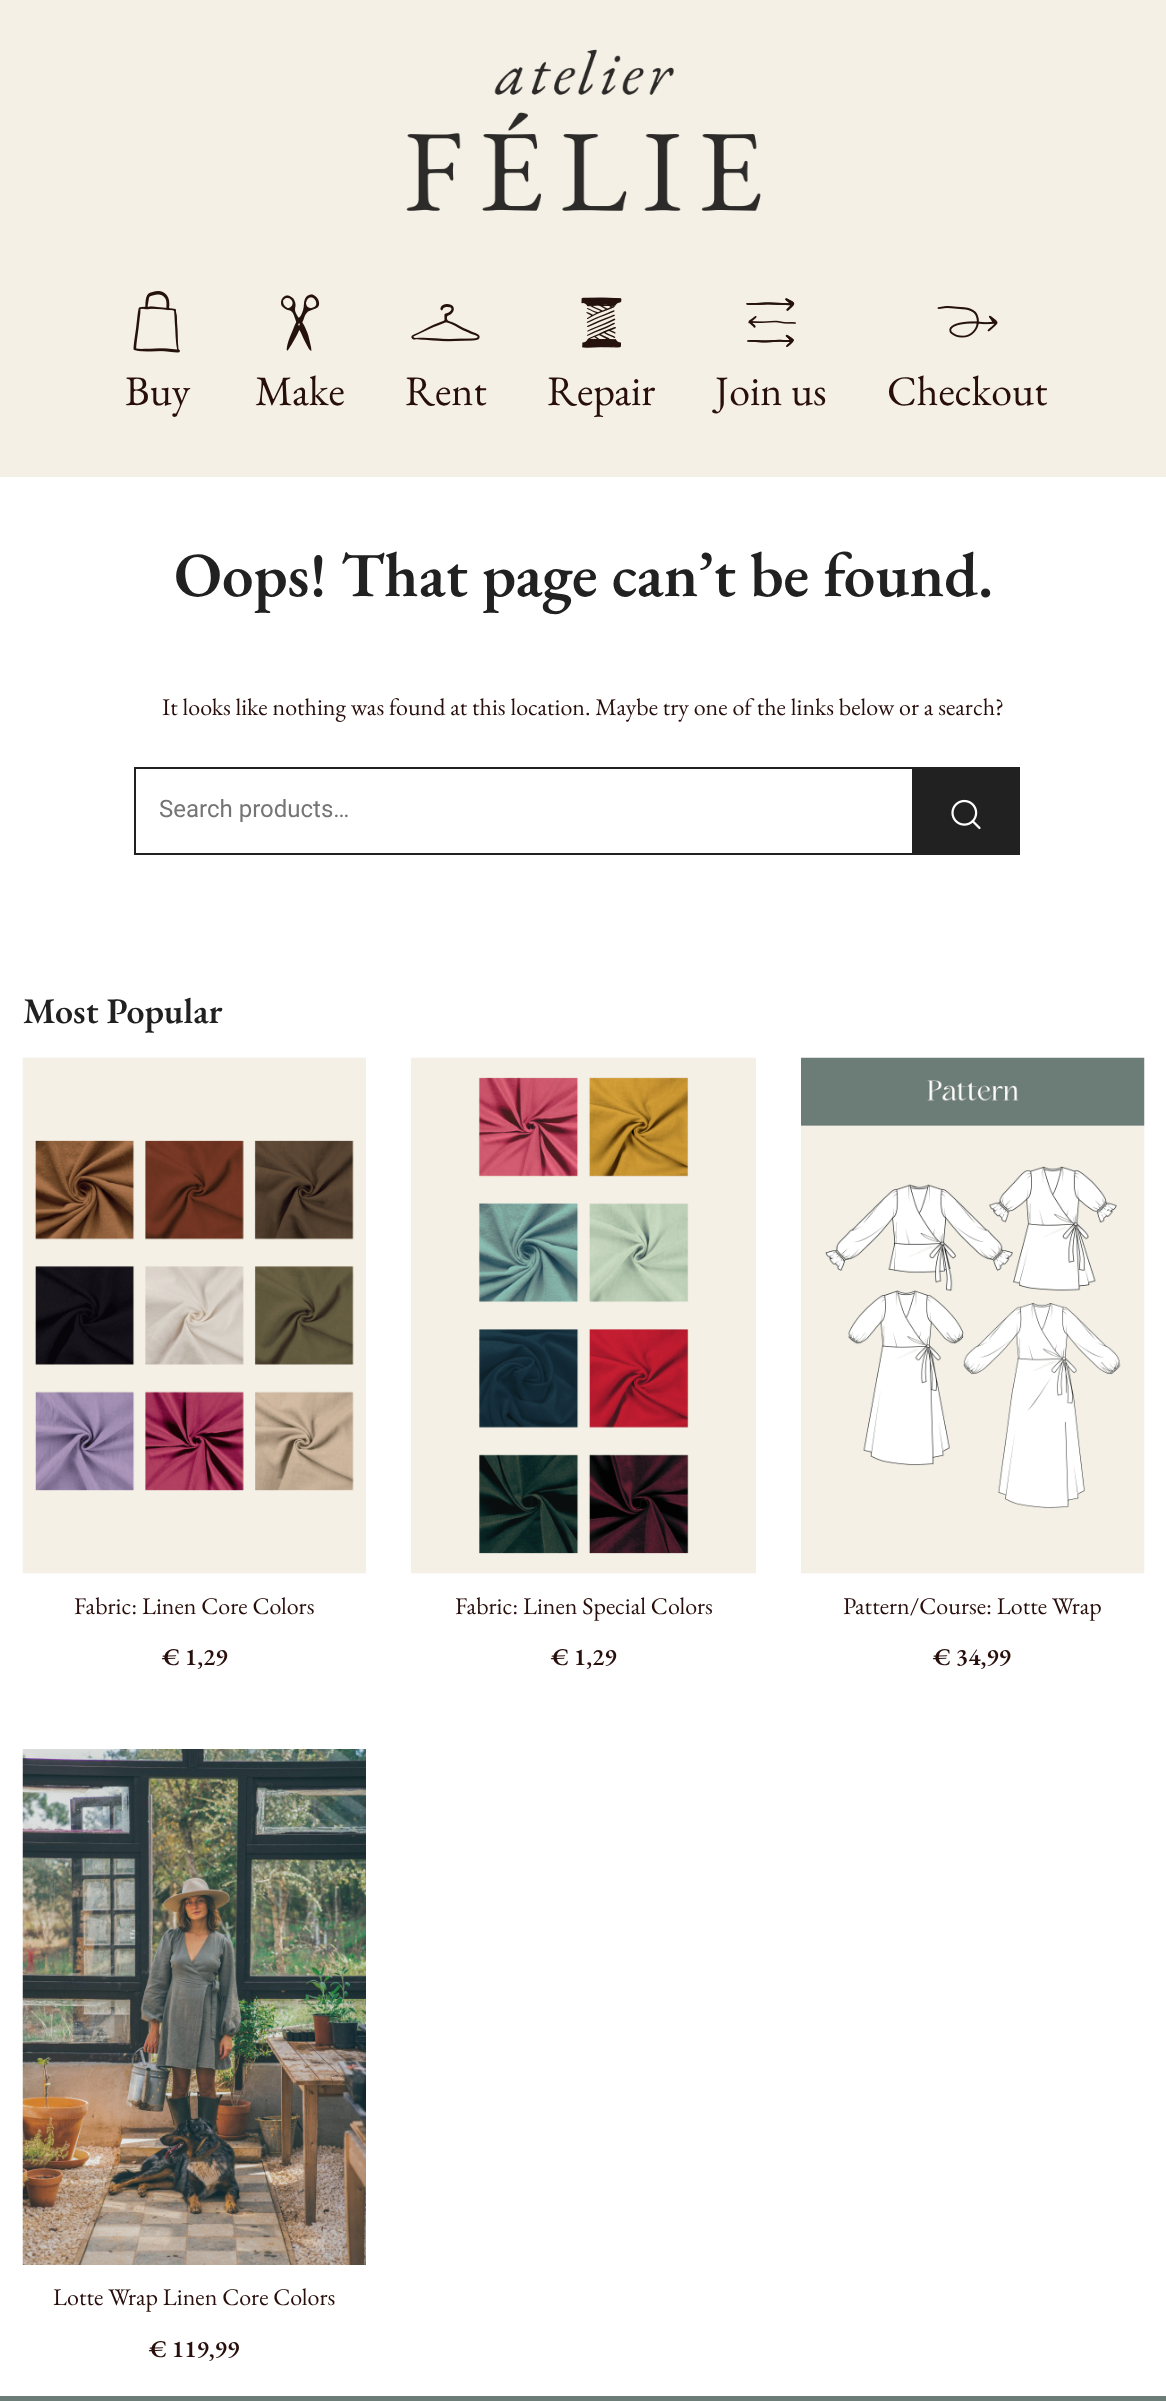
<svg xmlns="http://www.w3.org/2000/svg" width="1166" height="2401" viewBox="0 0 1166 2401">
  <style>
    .t1 { font: 42px EB Garamond; fill: #280f0c; }
    .t2 { font: 600 63px EB Garamond; fill: #212121; }
    .t3 { font: 24px EB Garamond; fill: #280f0c; }
    .t4 { font: 24px Roboto; fill: #757575; }
    .t5 { font: 600 36px EB Garamond; fill: #212121; }
    .t6 { font: 600 24px EB Garamond; fill: #280f0c; }
  </style>
  <rect width="100%" height="100%" fill="#fff"/>
  <rect x="0" y="0" width="1166" height="477" fill="#f5f0e5"/>
  <image x="406" y="49" width="355" height="162" href="images/1.png"/>
  <image x="133" y="291" width="47" height="62" href="images/2.png"/>
  <text x="125" y="405" class="t1">Buy</text>
  <image x="281" y="294" width="39" height="57" href="images/3.png"/>
  <text x="255" y="405" class="t1">Make</text>
  <image x="411" y="304" width="69" height="38" href="images/4.png"/>
  <text x="405" y="405" class="t1">Rent</text>
  <image x="581" y="297" width="41" height="51" href="images/5.png"/>
  <text x="547" y="405" class="t1">Repair</text>
  <image x="746" y="298" width="50" height="49" href="images/6.png"/>
  <text x="715" y="405" class="t1">Join us</text>
  <image x="937" y="306" width="61" height="32" href="images/7.png"/>
  <text x="887" y="405" class="t1">Checkout</text>
  <text x="174" y="596" class="t2">Oops! That page can’t be found.</text>
  <text x="162" y="715" class="t3">It looks like nothing was found at this location. Maybe try one of the links below or a search?</text>
  <rect x="135" y="768" width="784" height="86" fill="none" stroke="#212121" stroke-width="2"/>
  <text x="159" y="817" class="t4">Search products…</text>
  <rect x="912" y="767" width="108" height="88" fill="#212121"/>
  <image x="951" y="799" width="30" height="31" href="images/8.png"/>
  <text x="23" y="1023" class="t5">Most Popular</text>
  <image x="22" y="1057" width="344" height="517" href="images/9.png"/>
  <text x="74" y="1614" class="t3">Fabric: Linen Core Colors</text>
  <text x="162" y="1665" class="t6">€ 1,29</text>
  <image x="411" y="1057" width="345" height="517" href="images/10.png"/>
  <text x="455" y="1614" class="t3">Fabric: Linen Special Colors</text>
  <text x="551" y="1665" class="t6">€ 1,29</text>
  <image x="801" y="1057" width="344" height="517" href="images/11.png"/>
  <text x="843" y="1614" class="t3">Pattern/Course: Lotte Wrap</text>
  <text x="933" y="1665" class="t6">€ 34,99</text>
  <image x="22" y="1749" width="344" height="516" href="images/12.png"/>
  <text x="53" y="2305" class="t3">Lotte Wrap Linen Core Colors</text>
  <text x="149" y="2357" class="t6">€ 119,99</text>
  <rect x="0" y="2396" width="1166" height="5" fill="#6c7d77"/>
</svg>
